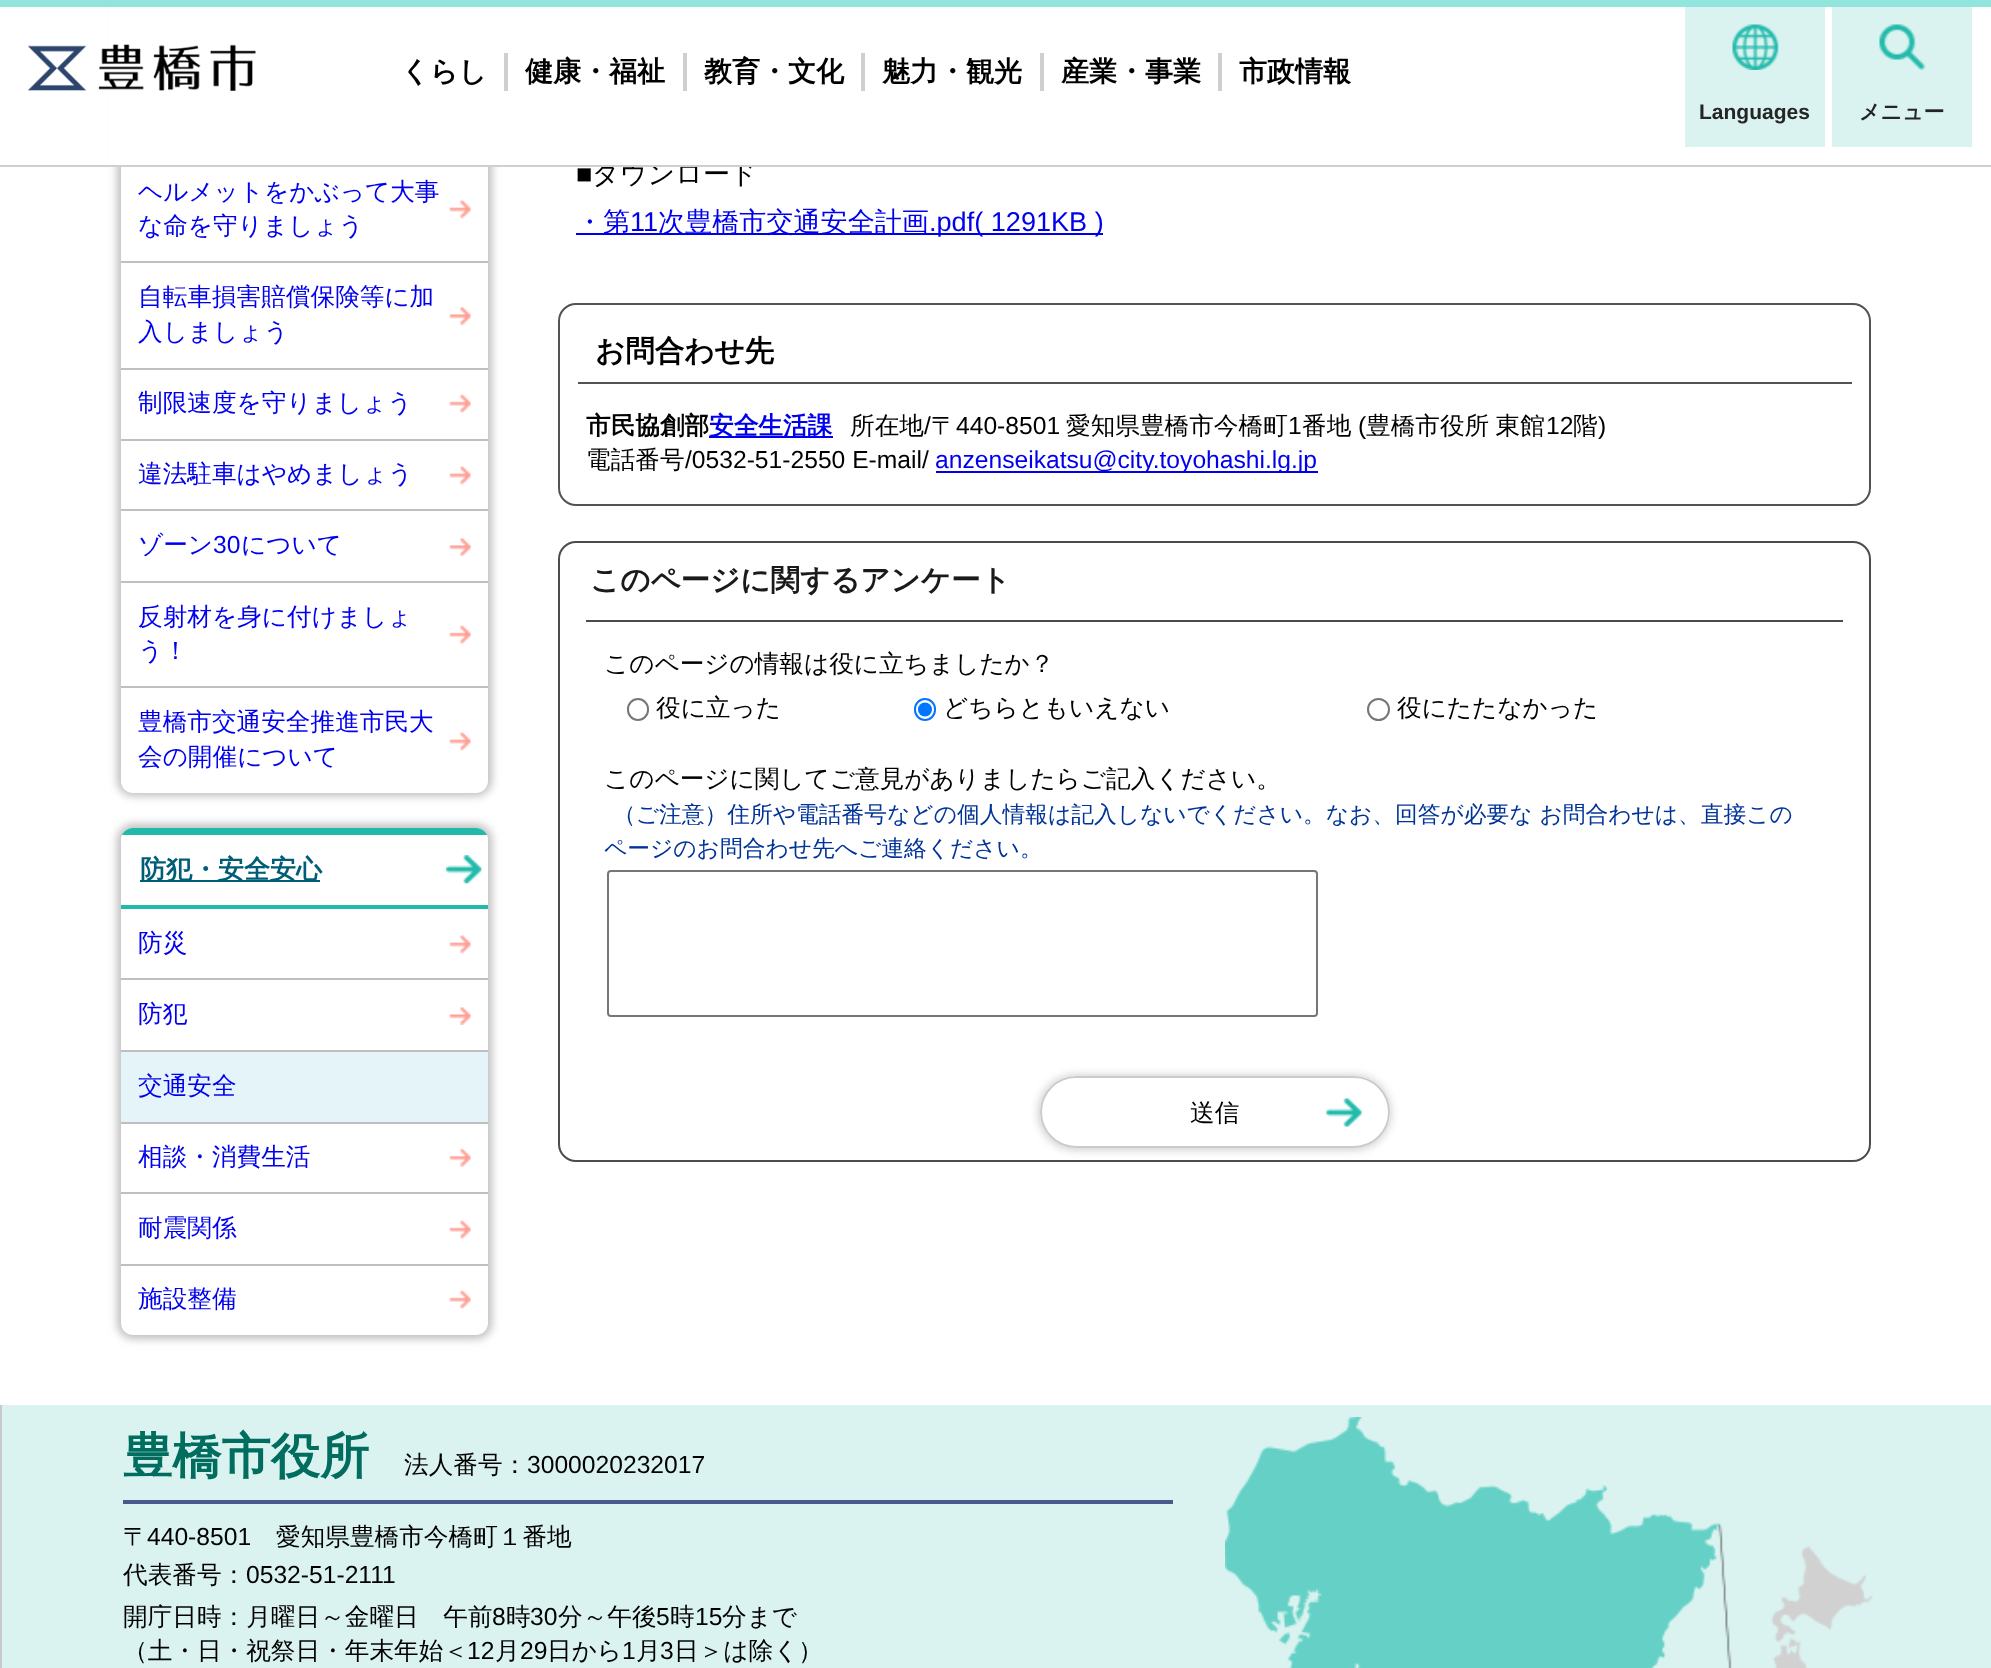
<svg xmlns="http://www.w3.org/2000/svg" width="1991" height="1668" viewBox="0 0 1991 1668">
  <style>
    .t1 { font: 500 27.1px WenQuanYi Zen Hei; fill: #000; }
    .t2 { font: bold 28px WenQuanYi Zen Hei; fill: #000; }
    .t3 { font: bold 21px Liberation Sans; fill: #242525; }
    .t4 { font: bold 21px WenQuanYi Zen Hei; fill: #242525; }
    .t5 { font: 500 24.65px WenQuanYi Zen Hei; fill: #00e; }
    .t6 { font: 24.65px Liberation Sans; fill: #00e; }
    .t7 { font: bold 26px WenQuanYi Zen Hei; fill: #005d77; }
    .t8 { font: 27.1px Liberation Sans; fill: #000; }
    .t9 { font: 500 27.1px WenQuanYi Zen Hei; fill: #00e; }
    .t10 { font: 27.1px Liberation Sans; fill: #00e; }
    .t11 { font: bold 29.5px WenQuanYi Zen Hei; fill: #000; }
    .t12 { font: bold 24.65px WenQuanYi Zen Hei; fill: #000; }
    .t13 { font: bold 24.65px WenQuanYi Zen Hei; fill: #00e; }
    .t14 { font: 500 24.65px WenQuanYi Zen Hei; fill: #000; }
    .t15 { font: 24.65px Liberation Sans; fill: #000; }
    .t16 { font: bold 29.5px WenQuanYi Zen Hei; fill: #1a1a1a; }
    .t17 { font: 500 22.75px WenQuanYi Zen Hei; fill: #039; }
    .t18 { font: bold 49.25px WenQuanYi Zen Hei; fill: #006d5f; }
  </style>
  <defs>
    <clipPath id="clip1"><path d="M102 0H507V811H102ZM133-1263H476C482.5-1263 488-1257.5 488-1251V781C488 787.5 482.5 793 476 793H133C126.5 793 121 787.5 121 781V-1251C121-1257.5 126.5-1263 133-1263Z" clip-rule="evenodd"/></clipPath>
    <clipPath id="clip2"><path d="M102 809H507V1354H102ZM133 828H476C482.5 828 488 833.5 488 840V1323C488 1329.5 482.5 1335 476 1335H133C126.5 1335 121 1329.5 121 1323V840C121 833.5 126.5 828 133 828Z" clip-rule="evenodd"/></clipPath>
    <clipPath id="clip3"><rect x="121" y="828" width="367" height="507" rx="12"/></clipPath>
    <clipPath id="clip4"><path d="M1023 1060H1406V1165H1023ZM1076 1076H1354C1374 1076 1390 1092 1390 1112C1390 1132 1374 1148 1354 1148H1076C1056 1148 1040 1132 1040 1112C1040 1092 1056 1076 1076 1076Z" clip-rule="evenodd"/></clipPath>
  </defs>
  <rect width="100%" height="100%" fill="#fff"/>
  <g clip-path="url(#clip1)">
    <rect x="117" y="-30" width="375" height="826" rx="16" fill="#bfbfbf" filter="blur(4.5px)"/>
  </g>
  <text x="592" y="183" class="t1">ダウンロード</text>
  <rect x="109" y="7" width="645" height="158" fill="#fff"/>
  <rect x="504" y="53" width="4" height="38" fill="#cfcfcf"/>
  <text x="401" y="81" class="t2">くらし</text>
  <rect x="683" y="53" width="4" height="38" fill="#cfcfcf"/>
  <text x="525" y="81" class="t2">健康・福祉</text>
  <rect x="861" y="53" width="4" height="38" fill="#cfcfcf"/>
  <text x="704" y="81" class="t2">教育・文化</text>
  <rect x="1040" y="53" width="4" height="38" fill="#cfcfcf"/>
  <text x="882" y="81" class="t2">魅力・観光</text>
  <rect x="1218" y="53" width="4" height="38" fill="#cfcfcf"/>
  <text x="1061" y="81" class="t2">産業・事業</text>
  <text x="1239" y="81" class="t2">市政情報</text>
  <rect x="0" y="0" width="1991" height="7" fill="#92e5dd"/>
  <rect x="0" y="165" width="1991" height="2" fill="#cfcfcf"/>
  <image x="28" y="44" width="228" height="47" href="images/1.png"/>
  <rect x="1685" y="7" width="140" height="140" fill="#daf3f0"/>
  <image x="1732" y="24" width="47" height="46" href="images/2.png"/>
  <text x="1699" y="119" class="t3">Languages</text>
  <rect x="1832" y="7" width="140" height="140" fill="#daf3f0"/>
  <image x="1879" y="24" width="47" height="46" href="images/3.png"/>
  <text x="1859" y="119" class="t4">メニュー</text>
  <image x="449" y="200" width="22" height="19" href="images/4.png"/>
  <rect x="121" y="261" width="367" height="2" fill="#bfbfbf"/>
  <text x="138" y="200" class="t5">ヘルメットをかぶって大事</text>
  <text x="138" y="234" class="t5">な命を守りましょう</text>
  <image x="449" y="307" width="22" height="18" href="images/5.png"/>
  <rect x="121" y="368" width="367" height="2" fill="#bfbfbf"/>
  <text x="138" y="305" class="t5">自転車損害賠償保険等に加</text>
  <text x="138" y="340" class="t5">入しましょう</text>
  <image x="449" y="394" width="22" height="19" href="images/6.png"/>
  <rect x="121" y="439" width="367" height="2" fill="#bfbfbf"/>
  <text x="138" y="411" class="t5">制限速度を守りましょう</text>
  <image x="449" y="466" width="22" height="19" href="images/4.png"/>
  <rect x="121" y="509" width="367" height="2" fill="#bfbfbf"/>
  <text x="138" y="482" class="t5">違法駐車はやめましょう</text>
  <image x="449" y="538" width="22" height="18" href="images/5.png"/>
  <rect x="121" y="581" width="367" height="2" fill="#bfbfbf"/>
  <text x="138" y="553" class="t5">ゾーン</text>
  <text x="213" y="553" class="t6">30</text>
  <text x="241" y="553" class="t5">について</text>
  <image x="449" y="625" width="22" height="19" href="images/6.png"/>
  <rect x="121" y="686" width="367" height="2" fill="#bfbfbf"/>
  <text x="138" y="625" class="t5">反射材を身に付けましょ</text>
  <text x="138" y="659" class="t5">う！</text>
  <image x="449" y="732" width="22" height="19" href="images/4.png"/>
  <text x="138" y="730" class="t5">豊橋市交通安全推進市民大</text>
  <text x="138" y="765" class="t5">会の開催について</text>
  <g clip-path="url(#clip2)">
    <rect x="117" y="824" width="375" height="515" rx="16" fill="#bfbfbf" filter="blur(4.5px)"/>
  </g>
  <g clip-path="url(#clip3)">
    <rect x="121" y="828" width="367" height="7" fill="#20b9aa"/>
  </g>
  <rect x="121" y="905" width="367" height="4" fill="#20b9aa"/>
  <g clip-path="url(#clip3)">
    <rect x="123" y="835" width="365" height="70" fill="#fff"/>
  </g>
  <image x="446" y="855" width="36" height="29" href="images/7.png"/>
  <rect x="140" y="880" width="180" height="2" fill="#005d77"/>
  <text x="140" y="878" class="t7">防犯・安全安心</text>
  <image x="449" y="935" width="22" height="19" href="images/4.png"/>
  <rect x="121" y="978" width="367" height="2" fill="#bfbfbf"/>
  <text x="138" y="951" class="t5">防災</text>
  <image x="449" y="1007" width="22" height="18" href="images/5.png"/>
  <rect x="121" y="1050" width="367" height="2" fill="#bfbfbf"/>
  <text x="138" y="1022" class="t5">防犯</text>
  <rect x="121" y="1122" width="367" height="2" fill="#bfbfbf"/>
  <rect x="121" y="1052" width="367" height="70" fill="#e5f4f9"/>
  <text x="138" y="1094" class="t5">交通安全</text>
  <image x="449" y="1148" width="22" height="19" href="images/8.png"/>
  <rect x="121" y="1192" width="367" height="2" fill="#bfbfbf"/>
  <text x="138" y="1165" class="t5">相談・消費生活</text>
  <image x="449" y="1220" width="22" height="19" href="images/6.png"/>
  <rect x="121" y="1264" width="367" height="2" fill="#bfbfbf"/>
  <text x="138" y="1236" class="t5">耐震関係</text>
  <image x="449" y="1290" width="22" height="19" href="images/6.png"/>
  <text x="138" y="1307" class="t5">施設整備</text>
  <text x="576" y="183" class="t8">■</text>
  <rect x="576" y="233" width="527" height="2" fill="#00e"/>
  <text x="576" y="231" class="t9">・第</text>
  <text x="630" y="231" class="t10">11</text>
  <text x="658" y="231" class="t9">次豊橋市交通安全計画</text>
  <text x="929" y="231" class="t10">.pdf( 1291KB )</text>
  <rect x="559" y="304" width="1311" height="201" rx="17" fill="none" stroke="#535353" stroke-width="2"/>
  <rect x="578" y="382" width="1274" height="2" fill="#535353"/>
  <text x="595" y="361" class="t11">お問合わせ先</text>
  <text x="586" y="434" class="t12">市民協創部</text>
  <rect x="709" y="436" width="124" height="2" fill="#00e"/>
  <text x="709" y="434" class="t13">安全生活課</text>
  <text x="850" y="434" class="t14">所在地</text>
  <text x="924" y="434" class="t15">/</text>
  <text x="931" y="434" class="t14">〒</text>
  <text x="956" y="434" class="t15">440-8501</text>
  <text x="1066" y="434" class="t14">愛知県豊橋市今橋町</text>
  <text x="1288" y="434" class="t15">1</text>
  <text x="1302" y="434" class="t14">番地</text>
  <text x="1358" y="434" class="t15">(</text>
  <text x="1366" y="434" word-spacing="-1" class="t14">豊橋市役所 東館</text>
  <text x="1546" y="434" class="t15">12</text>
  <text x="1573" y="434" class="t14">階</text>
  <text x="1598" y="434" class="t15">)</text>
  <text x="586" y="468" class="t14">電話番号</text>
  <text x="685" y="468" class="t15">/0532-51-2550 E-mail/</text>
  <rect x="936" y="471" width="382" height="2" fill="#00e"/>
  <text x="935" y="468" class="t6">anzenseikatsu@city.toyohashi.lg.jp</text>
  <rect x="559" y="542" width="1311" height="619" rx="17" fill="none" stroke="#4c4c4c" stroke-width="2"/>
  <rect x="586" y="620" width="1257" height="2" fill="#4c4c4c"/>
  <text x="590" y="590" class="t16">このページに関するアンケート</text>
  <text x="604" y="672" class="t14">このページの情報は役に立ちましたか？</text>
  <rect x="628" y="699" width="20" height="21" rx="10" fill="none" stroke="#767676" stroke-width="2"/>
  <text x="656" y="716" class="t14">役に立った</text>
  <rect x="915" y="699" width="20" height="21" rx="10" fill="none" stroke="#0075ff" stroke-width="2"/>
  <circle cx="925" cy="709.5" r="7" fill="#0075ff"/>
  <text x="943" y="716" class="t14">どちらともいえない</text>
  <circle cx="1378.5" cy="709.5" r="10.5" fill="none" stroke="#767676" stroke-width="2"/>
  <text x="1397" y="716" class="t14">役にたたなかった</text>
  <text x="604" y="787" class="t14">このページに関してご意見がありましたらご記入ください。</text>
  <text x="613" y="822" class="t17">（ご注意）住所や電話番号などの個人情報は記入しないでください。なお、回答が必要な お問合わせは、直接この</text>
  <text x="604" y="856" class="t17">ページのお問合わせ先へご連絡ください。</text>
  <rect x="608" y="871" width="709" height="145" rx="3" fill="none" stroke="#767676" stroke-width="2"/>
  <g clip-path="url(#clip4)">
    <rect x="1038" y="1075" width="353" height="75" rx="37.5" fill="#cfcfcf" filter="blur(4.5px)"/>
  </g>
  <image x="1326" y="1098" width="36" height="29" href="images/9.png"/>
  <rect x="1041" y="1077" width="348" height="70" rx="35" fill="none" stroke="#cbcbcb" stroke-width="2"/>
  <text x="1190" y="1121" class="t14">送信</text>
  <rect x="0" y="1405" width="2" height="263" fill="#c9c9c9"/>
  <rect x="2" y="1405" width="1989" height="263" fill="#daf3f0"/>
  <image x="1225" y="1417" width="648" height="251" href="images/10.png"/>
  <rect x="123" y="1500" width="1050" height="4" fill="#485a8d"/>
  <text x="123" y="1473" class="t18">豊橋市役所</text>
  <text x="404" y="1473" class="t14">法人番号：</text>
  <text x="527" y="1473" class="t15">3000020232017</text>
  <text x="123" y="1545" class="t14">〒</text>
  <text x="147" y="1545" class="t15">440-8501</text>
  <text x="276" y="1545" class="t14">愛知県豊橋市今橋町１番地</text>
  <text x="123" y="1583" class="t14">代表番号：</text>
  <text x="246" y="1583" class="t15">0532-51-2111</text>
  <text x="123" y="1625" class="t14">開庁日時：月曜日～金曜日　午前</text>
  <text x="492" y="1625" class="t15">8</text>
  <text x="506" y="1625" class="t14">時</text>
  <text x="530" y="1625" class="t15">30</text>
  <text x="558" y="1625" class="t14">分～午後</text>
  <text x="656" y="1625" class="t15">5</text>
  <text x="670" y="1625" class="t14">時</text>
  <text x="695" y="1625" class="t15">15</text>
  <text x="722" y="1625" class="t14">分まで</text>
  <text x="123" y="1659" class="t14">（土・日・祝祭日・年末年始＜</text>
  <text x="467" y="1659" class="t15">12</text>
  <text x="495" y="1659" class="t14">月</text>
  <text x="520" y="1659" class="t15">29</text>
  <text x="547" y="1659" class="t14">日から</text>
  <text x="622" y="1659" class="t15">1</text>
  <text x="636" y="1659" class="t14">月</text>
  <text x="660" y="1659" class="t15">3</text>
  <text x="674" y="1659" class="t14">日＞は除く）</text>
</svg>
